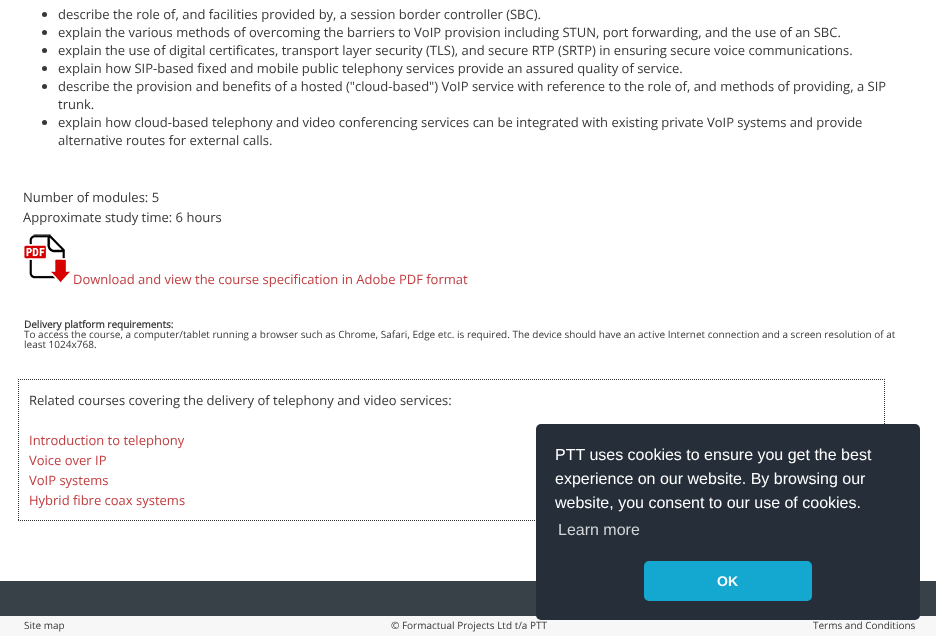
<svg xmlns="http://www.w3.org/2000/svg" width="936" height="636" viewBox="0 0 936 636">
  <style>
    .t1 { font: 13px Open Sans; fill: #383838; }
    .t2 { font: 13px Open Sans; fill: #c13c3f; }
    .t3 { font: bold 10px Open Sans; fill: #383838; }
    .t4 { font: 10px Open Sans; fill: #383838; }
    .t5 { font: 16px Liberation Sans; fill: #fff; }
    .t6 { font: 16px Liberation Sans; fill: #d3d5d7; }
    .t7 { font: bold 14px Liberation Sans; fill: #fff; }
  </style>
  <rect width="100%" height="100%" fill="#fff"/>
  <circle cx="44.5" cy="14.5" r="2.5" fill="#383838"/>
  <text x="58" y="19" class="t1">describe the role of, and facilities provided by, a session border controller (SBC).</text>
  <circle cx="44.5" cy="32.5" r="2.5" fill="#383838"/>
  <text x="58" y="37" class="t1">explain the various methods of overcoming the barriers to VoIP provision including STUN, port forwarding, and the use of an SBC.</text>
  <circle cx="44.5" cy="50.5" r="2.5" fill="#383838"/>
  <text x="58" y="55" class="t1">explain the use of digital certificates, transport layer security (TLS), and secure RTP (SRTP) in ensuring secure voice communications.</text>
  <circle cx="44.5" cy="68.5" r="2.5" fill="#383838"/>
  <text x="58" y="73" class="t1">explain how SIP-based fixed and mobile public telephony services provide an assured quality of service.</text>
  <circle cx="44.5" cy="86.5" r="2.5" fill="#383838"/>
  <text x="58" y="91" class="t1">describe the provision and benefits of a hosted ("cloud-based") VoIP service with reference to the role of, and methods of providing, a SIP</text>
  <text x="58" y="109" class="t1">trunk.</text>
  <circle cx="44.5" cy="122.5" r="2.5" fill="#383838"/>
  <text x="58" y="127" class="t1">explain how cloud-based telephony and video conferencing services can be integrated with existing private VoIP systems and provide</text>
  <text x="58" y="145" class="t1">alternative routes for external calls.</text>
  <text x="23" y="202" class="t1">Number of modules: 5</text>
  <text x="23" y="222" class="t1">Approximate study time: 6 hours</text>
  <image x="24" y="234" width="47" height="49" href="images/1.png"/>
  <text x="73" y="284" class="t2">Download and view the course specification in Adobe PDF format</text>
  <text x="24" y="328" class="t3">Delivery platform requirements:</text>
  <text x="24" y="338" class="t4">To access the course, a computer/tablet running a browser such as Chrome, Safari, Edge etc. is required. The device should have an active Internet connection and a screen resolution of at</text>
  <text x="24" y="348" class="t4">least 1024x768.</text>
  <path d="M18 379.5H885" fill="none" stroke="#333" stroke-dasharray="1 1"/>
  <path d="M884.5 379V521" fill="none" stroke="#333" stroke-dasharray="1 1"/>
  <path d="M18 520.5H885" fill="none" stroke="#333" stroke-dasharray="1 1"/>
  <path d="M18.5 379V521" fill="none" stroke="#333" stroke-dasharray="1 1"/>
  <text x="29" y="405" class="t1">Related courses covering the delivery of telephony and video services:</text>
  <text x="29" y="445" class="t2">Introduction to telephony</text>
  <text x="29" y="465" class="t2">Voice over IP</text>
  <text x="29" y="485" class="t2">VoIP systems</text>
  <text x="29" y="505" class="t2">Hybrid fibre coax systems</text>
  <rect x="0" y="616" width="936" height="20" fill="#f7f7f7"/>
  <rect x="0" y="581" width="936" height="35" fill="#384048"/>
  <rect x="536" y="424" width="384" height="196" rx="5" fill="#252e39"/>
  <text x="555" y="460" class="t5">PTT uses cookies to ensure you get the best</text>
  <text x="555" y="484" class="t5">experience on our website. By browsing our</text>
  <text x="555" y="508" class="t5">website, you consent to our use of cookies.</text>
  <text x="558" y="535" class="t6">Learn more</text>
  <rect x="644" y="561" width="168" height="40" rx="5" fill="#14a7d0"/>
  <text x="717" y="586" class="t7">OK</text>
  <text x="24" y="629" class="t4">Site map</text>
  <text x="391" y="629" class="t4">© Formactual Projects Ltd t/a PTT</text>
  <text x="813" y="629" class="t4">Terms and Conditions</text>
</svg>
